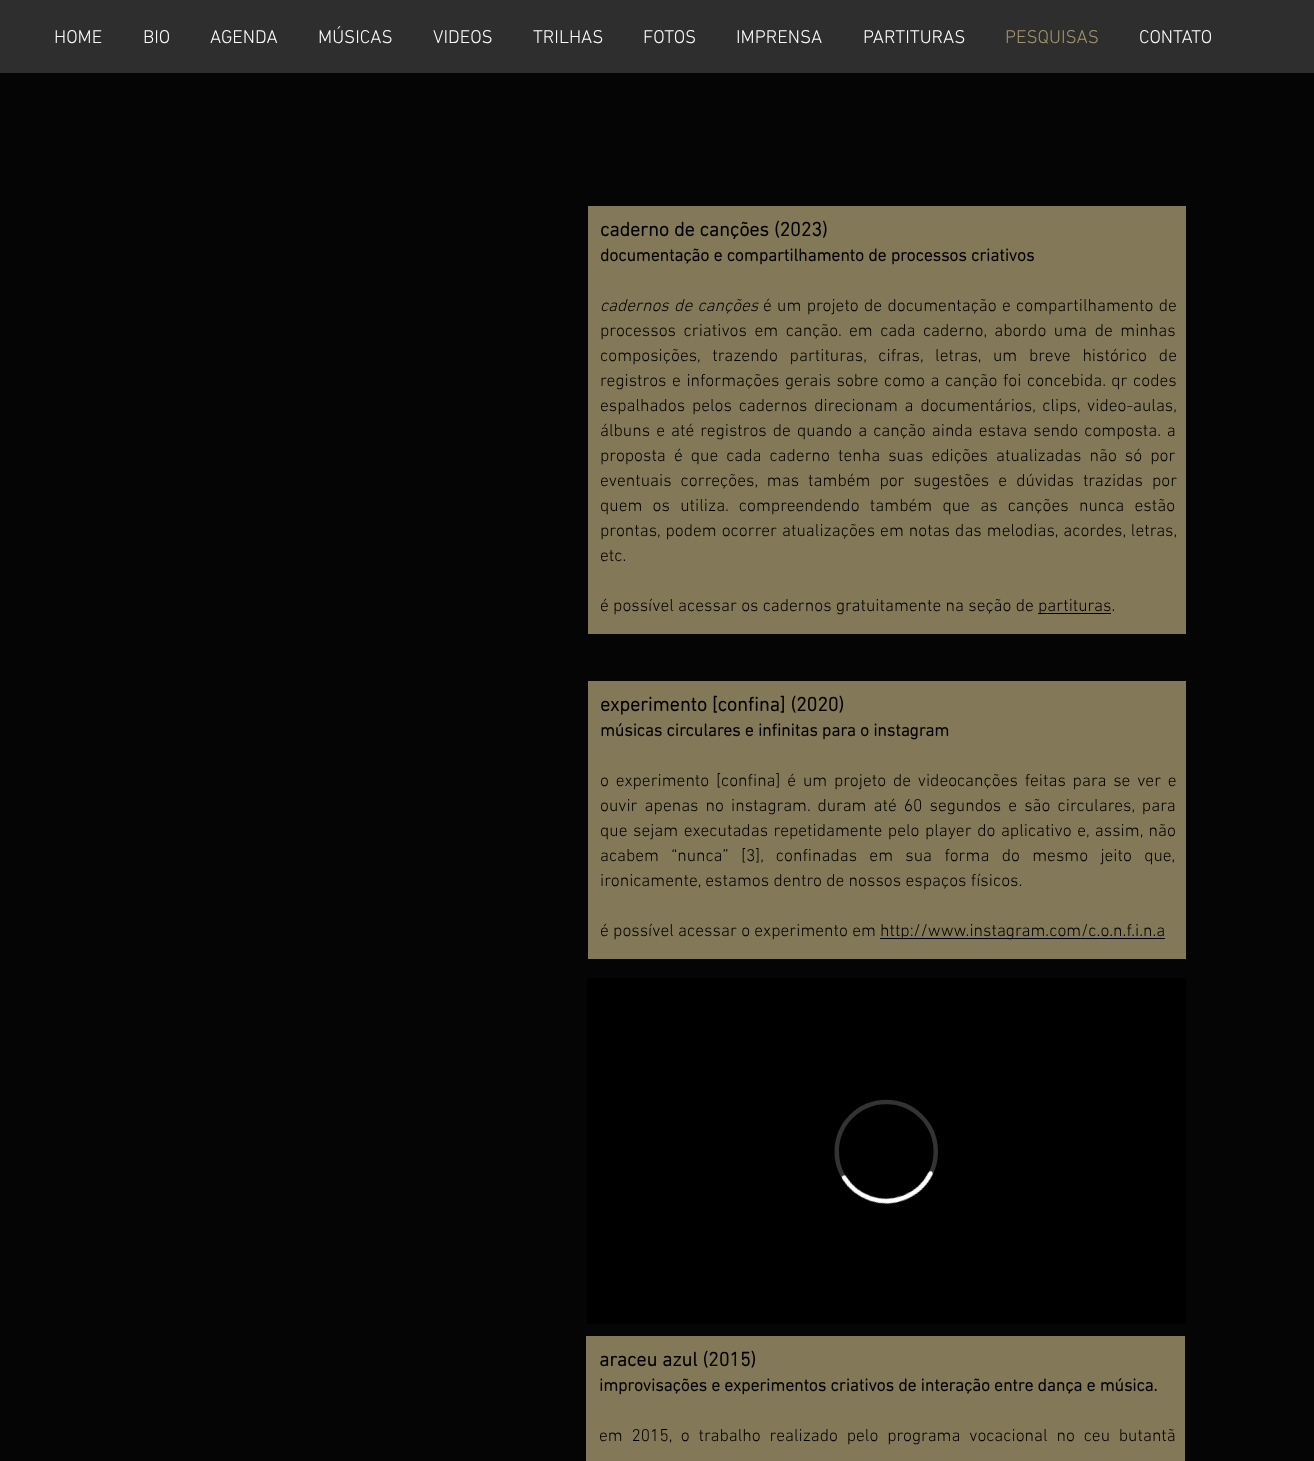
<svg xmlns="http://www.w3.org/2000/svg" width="1314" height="1461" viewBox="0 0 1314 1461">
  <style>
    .t1 { font: 300 18.75px 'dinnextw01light'; fill: #fff; }
    .t2 { font: 300 18.75px 'dinnextw01light'; fill: #a3956d; }
    .t3 { font: bold 20px 'dinnextw01light'; fill: #000; }
    .t4 { font: bold 17.5px 'dinnextw01light'; fill: #000; }
    .t5 { font: italic 300 17.5px 'dinnextw01light'; fill: #000; }
    .t6 { font: 300 17.5px 'dinnextw01light'; fill: #000; }
  </style>
  <rect width="100%" height="100%" fill="#050505"/>
  <rect x="0" y="0" width="1314" height="73" fill="#2f2e2e"/>
  <text x="54" y="43" class="t1">HOME</text>
  <text x="143" y="43" class="t1">BIO</text>
  <text x="210" y="43" class="t1">AGENDA</text>
  <text x="318" y="43" class="t1">MÚSICAS</text>
  <text x="433" y="43" class="t1">VIDEOS</text>
  <text x="533" y="43" class="t1">TRILHAS</text>
  <text x="643" y="43" class="t1">FOTOS</text>
  <text x="736" y="43" class="t1">IMPRENSA</text>
  <text x="863" y="43" class="t1">PARTITURAS</text>
  <text x="1005" y="43" class="t2">PESQUISAS</text>
  <text x="1139" y="43" class="t1">CONTATO</text>
  <rect x="588" y="206" width="598" height="428" fill="#837858"/>
  <text x="600" y="236" class="t3">caderno de canções (2023)</text>
  <text x="600" y="261" class="t4">documentação e compartilhamento de processos criativos</text>
  <text x="600" y="311" word-spacing="1" class="t5">cadernos de canções</text>
  <text x="763" y="311" word-spacing="1" class="t6">é um projeto de documentação e compartilhamento de</text>
  <text x="600" y="336" word-spacing="3.25" class="t6">processos criativos em canção. em cada caderno, abordo uma de minhas</text>
  <text x="600" y="361" word-spacing="7.5" class="t6">composições, trazendo partituras, cifras, letras, um breve histórico de</text>
  <text x="600" y="386" word-spacing="1.25" class="t6">registros e informações gerais sobre como a canção foi concebida. qr codes</text>
  <text x="600" y="411" word-spacing="2.5" class="t6">espalhados pelos cadernos direcionam a documentários, clips, video-aulas,</text>
  <text x="600" y="436" word-spacing="1.75" class="t6">álbuns e até registros de quando a canção ainda estava sendo composta. a</text>
  <text x="600" y="461" word-spacing="3.75" class="t6">proposta é que cada caderno tenha suas edições atualizadas não só por</text>
  <text x="600" y="486" word-spacing="4.75" class="t6">eventuais correções, mas também por sugestões e dúvidas trazidas por</text>
  <text x="600" y="511" word-spacing="6" class="t6">quem os utiliza. compreendendo também que as canções nunca estão</text>
  <text x="600" y="536" word-spacing="0.75" class="t6">prontas, podem ocorrer atualizações em notas das melodias, acordes, letras,</text>
  <text x="600" y="561" class="t6">etc.</text>
  <text x="600" y="611" class="t6">é possível acessar os cadernos gratuitamente na seção de</text>
  <rect x="1038" y="613" width="73" height="1" fill="#000"/>
  <text x="1038" y="611" class="t6">partituras.</text>
  <rect x="588" y="681" width="598" height="278" fill="#837858"/>
  <text x="600" y="711" class="t3">experimento [confina] (2020)</text>
  <text x="600" y="736" class="t4">músicas circulares e infinitas para o instagram</text>
  <text x="600" y="786" word-spacing="2.5" class="t6">o experimento [confina] é um projeto de videocanções feitas para se ver e</text>
  <text x="600" y="811" word-spacing="2.75" class="t6">ouvir apenas no instagram. duram até 60 segundos e são circulares, para</text>
  <text x="600" y="836" word-spacing="1.25" class="t6">que sejam executadas repetidamente pelo player do aplicativo e, assim, não</text>
  <text x="600" y="861" word-spacing="8" class="t6">acabem “nunca” [3], confinadas em sua forma do mesmo jeito que,</text>
  <text x="600" y="886" class="t6">ironicamente, estamos dentro de nossos espaços físicos.</text>
  <text x="600" y="936" class="t6">é possível acessar o experimento em</text>
  <rect x="880" y="938" width="285" height="1" fill="#000"/>
  <text x="880" y="936" class="t6">http://www.instagram.com/c.o.n.f.i.n.a</text>
  <image x="587" y="978" width="599" height="346" href="images/1.png"/>
  <rect x="586" y="1336" width="599" height="125" fill="#837858"/>
  <text x="599" y="1366" class="t3">araceu azul (2015)</text>
  <text x="599" y="1391" class="t4">improvisações e experimentos criativos de interação entre dança e música.</text>
  <text x="599" y="1441" word-spacing="4.5" class="t6">em 2015, o trabalho realizado pelo programa vocacional no ceu butantã</text>
</svg>
